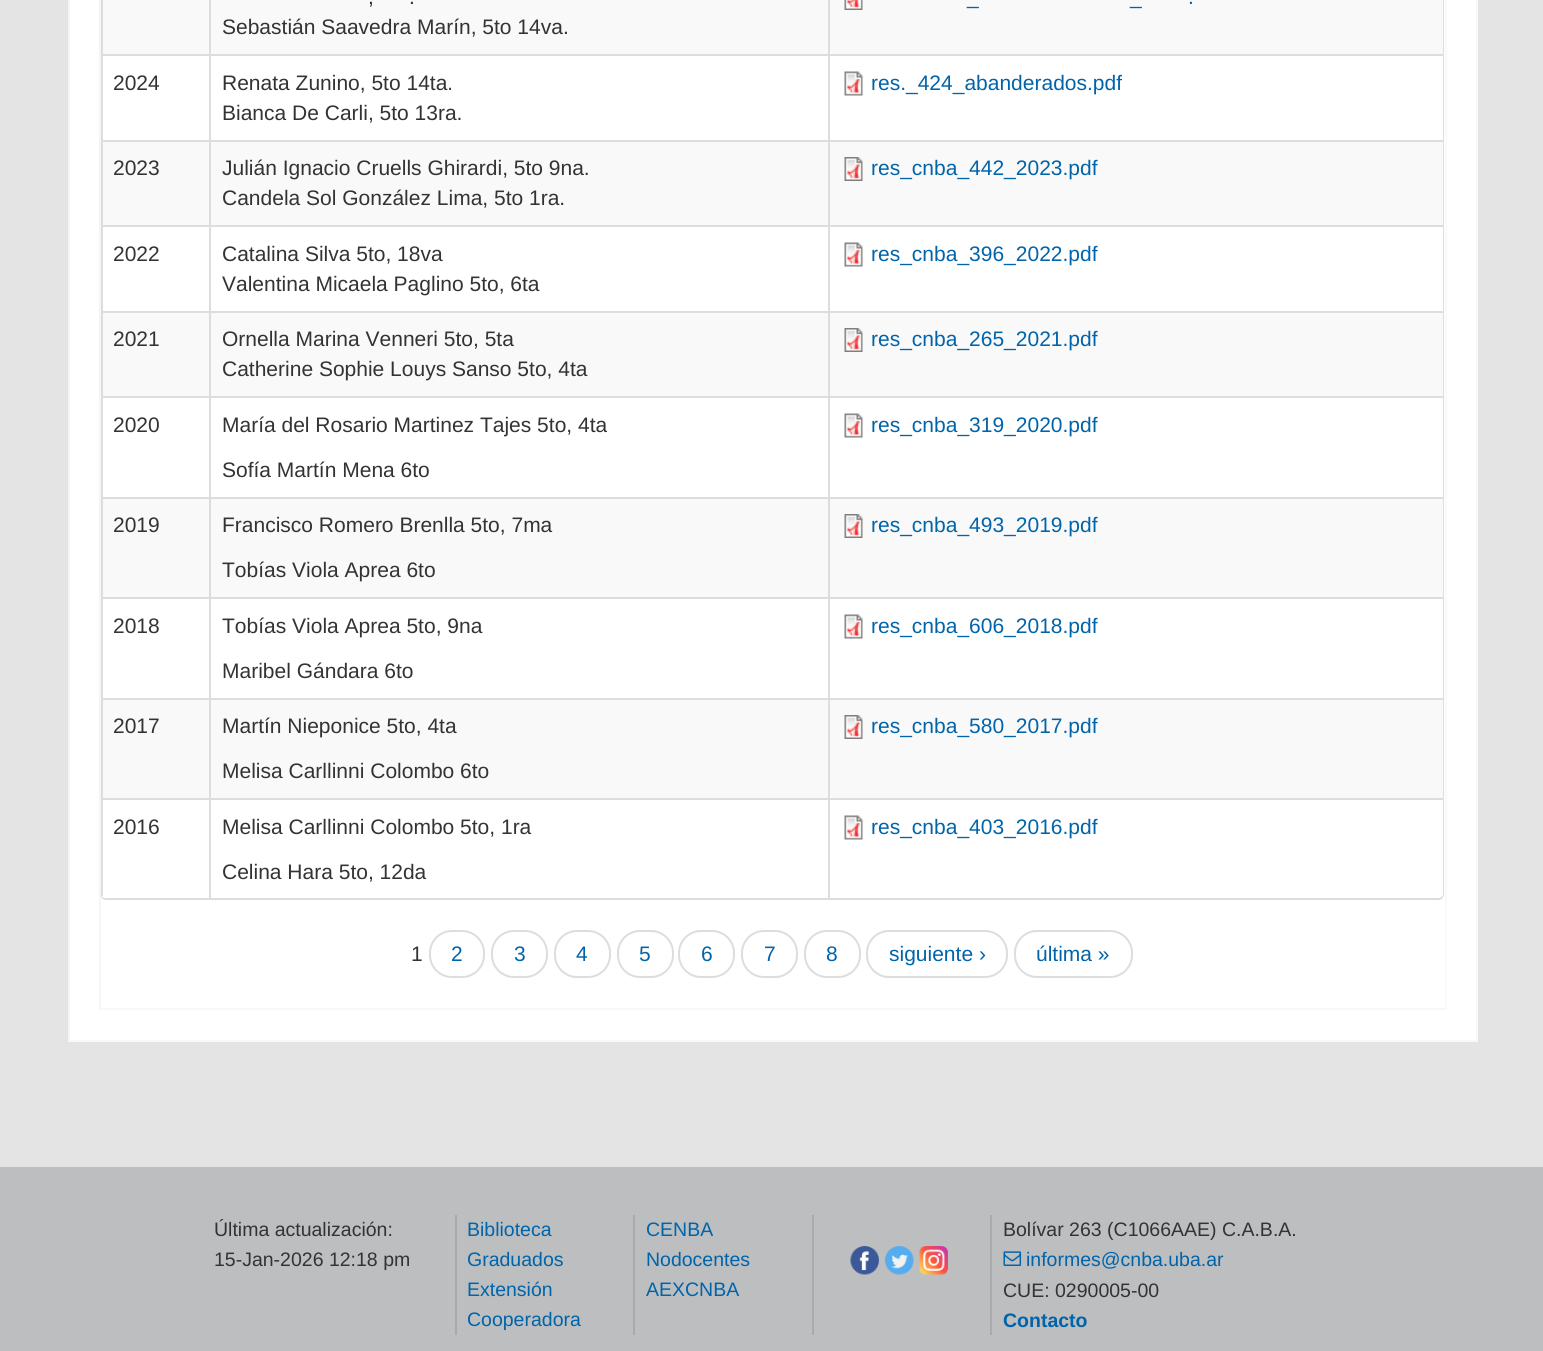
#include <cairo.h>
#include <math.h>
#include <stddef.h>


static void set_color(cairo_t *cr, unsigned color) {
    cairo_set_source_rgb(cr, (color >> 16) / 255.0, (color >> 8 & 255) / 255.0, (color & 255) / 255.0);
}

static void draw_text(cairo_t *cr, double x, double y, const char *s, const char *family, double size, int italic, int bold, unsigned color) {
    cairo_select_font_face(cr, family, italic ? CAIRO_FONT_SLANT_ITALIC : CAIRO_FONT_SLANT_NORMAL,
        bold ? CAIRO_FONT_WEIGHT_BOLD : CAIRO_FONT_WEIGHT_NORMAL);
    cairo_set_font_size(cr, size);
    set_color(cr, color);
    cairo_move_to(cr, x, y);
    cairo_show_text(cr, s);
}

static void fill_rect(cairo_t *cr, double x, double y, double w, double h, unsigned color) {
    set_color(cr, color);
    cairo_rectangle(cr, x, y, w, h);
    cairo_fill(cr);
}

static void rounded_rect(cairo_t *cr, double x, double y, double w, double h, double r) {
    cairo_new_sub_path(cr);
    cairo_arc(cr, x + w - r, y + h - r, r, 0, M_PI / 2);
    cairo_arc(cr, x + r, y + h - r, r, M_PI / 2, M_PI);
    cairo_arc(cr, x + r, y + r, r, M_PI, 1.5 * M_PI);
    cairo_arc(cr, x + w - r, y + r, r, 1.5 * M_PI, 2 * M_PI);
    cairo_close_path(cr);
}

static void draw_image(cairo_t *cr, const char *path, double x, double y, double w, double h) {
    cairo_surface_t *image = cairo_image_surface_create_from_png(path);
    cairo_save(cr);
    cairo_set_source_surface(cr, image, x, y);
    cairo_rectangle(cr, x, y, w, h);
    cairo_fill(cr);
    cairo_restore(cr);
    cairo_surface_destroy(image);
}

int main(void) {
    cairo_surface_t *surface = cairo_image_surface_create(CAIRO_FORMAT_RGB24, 1543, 1351);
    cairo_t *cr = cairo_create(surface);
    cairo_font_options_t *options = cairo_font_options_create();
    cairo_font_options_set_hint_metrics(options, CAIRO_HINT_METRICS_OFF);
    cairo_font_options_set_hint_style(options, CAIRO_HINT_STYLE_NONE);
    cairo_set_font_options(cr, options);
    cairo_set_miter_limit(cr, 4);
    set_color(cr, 0xE4E4E4);
    cairo_paint(cr);
    fill_rect(cr, 70, 0, 1406, 1040, 0xFFFFFF);
    fill_rect(cr, 1476, 0, 2, 1041, 0xF9F9F9);
    fill_rect(cr, 68, 1040, 1410, 2, 0xF8F8F8);
    fill_rect(cr, 68, 0, 2, 1041, 0xF5F5F5);
    fill_rect(cr, 1445, 0, 2, 1010, 0xF9F9F9);
    fill_rect(cr, 99, 1008, 1347, 2, 0xF8F8F8);
    fill_rect(cr, 99, 0, 2, 1010, 0xF5F5F5);
    set_color(cr, 0xDDDDDD);
    cairo_set_fill_rule(cr, CAIRO_FILL_RULE_EVEN_ODD);
    cairo_new_path(cr);
    cairo_move_to(cr, 106, -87);
    cairo_line_to(cr, 1438, -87);
    cairo_curve_to(cr, 1442, -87, 1444, -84, 1444, -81);
    cairo_line_to(cr, 1444, 894);
    cairo_curve_to(cr, 1444, 897, 1442, 900, 1438, 900);
    cairo_line_to(cr, 106, 900);
    cairo_curve_to(cr, 103, 900, 100, 897, 100, 894);
    cairo_line_to(cr, 100, -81);
    cairo_curve_to(cr, 100, -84, 103, -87, 106, -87);
    cairo_close_path(cr);
    cairo_move_to(cr, 106, -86);
    cairo_line_to(cr, 1438, -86);
    cairo_curve_to(cr, 1441, -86, 1443, -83, 1443, -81);
    cairo_line_to(cr, 1443, 894);
    cairo_curve_to(cr, 1443, 896, 1441, 898, 1438, 898);
    cairo_line_to(cr, 106, 898);
    cairo_curve_to(cr, 103, 898, 100, 896, 100, 894);
    cairo_line_to(cr, 100, -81);
    cairo_curve_to(cr, 100, -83, 103, -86, 106, -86);
    cairo_close_path(cr);
    cairo_fill(cr);
    fill_rect(cr, 103, 0, 106, 54, 0xF9F9F9);
    fill_rect(cr, 101, 0, 2, 54, 0xDDDDDD);
    fill_rect(cr, 211, 0, 617, 54, 0xF9F9F9);
    fill_rect(cr, 209, 0, 2, 54, 0xDDDDDD);
    draw_text(cr, 368, 4, ",", "Liberation Sans", 21, 0, 0, 0x333333);
    draw_text(cr, 409, 4, ".", "Liberation Sans", 21, 0, 0, 0x333333);
    draw_text(cr, 222, 34, "Sebastián Saavedra Marín, 5to 14va.", "Liberation Sans", 21, 0, 0, 0x333333);
    fill_rect(cr, 830, 0, 613, 54, 0xF9F9F9);
    fill_rect(cr, 828, 0, 2, 54, 0xDDDDDD);
    draw_image(cr, "assets/img1.png", 844, 0, 19, 10);
    draw_text(cr, 1188, 4, ".", "Liberation Sans", 21, 0, 0, 0x0064AA);
    draw_text(cr, 967, 4, "_", "Liberation Sans", 21, 0, 0, 0x0064AA);
    draw_text(cr, 1130, 4, "_", "Liberation Sans", 21, 0, 0, 0x0064AA);
    fill_rect(cr, 101, 54, 1342, 2, 0xDDDDDD);
    fill_rect(cr, 101, 54, 2, 86, 0xDDDDDD);
    draw_text(cr, 113, 90, "2024", "Liberation Sans", 21, 0, 0, 0x333333);
    fill_rect(cr, 209, 54, 2, 86, 0xDDDDDD);
    draw_text(cr, 222, 90, "Renata Zunino, 5to 14ta.", "Liberation Sans", 21, 0, 0, 0x333333);
    draw_text(cr, 222, 120, "Bianca De Carli, 5to 13ra.", "Liberation Sans", 21, 0, 0, 0x333333);
    fill_rect(cr, 828, 54, 2, 86, 0xDDDDDD);
    draw_image(cr, "assets/img2.png", 844, 71, 19, 25);
    draw_text(cr, 871, 90, "res._424_abanderados.pdf", "Liberation Sans", 21, 0, 0, 0x0064AA);
    fill_rect(cr, 103, 142, 106, 83, 0xF9F9F9);
    fill_rect(cr, 101, 140, 1342, 2, 0xDDDDDD);
    fill_rect(cr, 101, 140, 2, 85, 0xDDDDDD);
    draw_text(cr, 113, 175, "2023", "Liberation Sans", 21, 0, 0, 0x333333);
    fill_rect(cr, 211, 142, 617, 83, 0xF9F9F9);
    fill_rect(cr, 209, 140, 2, 85, 0xDDDDDD);
    draw_text(cr, 222, 175, "Julián Ignacio Cruells Ghirardi, 5to 9na.", "Liberation Sans", 21, 0, 0, 0x333333);
    draw_text(cr, 222, 205, "Candela Sol González Lima, 5to 1ra.", "Liberation Sans", 21, 0, 0, 0x333333);
    fill_rect(cr, 830, 142, 613, 83, 0xF9F9F9);
    fill_rect(cr, 828, 140, 2, 85, 0xDDDDDD);
    draw_image(cr, "assets/img3.png", 844, 157, 19, 24);
    draw_text(cr, 871, 175, "res_cnba_442_2023.pdf", "Liberation Sans", 21, 0, 0, 0x0064AA);
    fill_rect(cr, 101, 225, 1342, 2, 0xDDDDDD);
    fill_rect(cr, 101, 225, 2, 86, 0xDDDDDD);
    draw_text(cr, 113, 261, "2022", "Liberation Sans", 21, 0, 0, 0x333333);
    fill_rect(cr, 209, 225, 2, 86, 0xDDDDDD);
    draw_text(cr, 222, 261, "Catalina Silva 5to, 18va", "Liberation Sans", 21, 0, 0, 0x333333);
    draw_text(cr, 222, 291, "Valentina Micaela Paglino 5to, 6ta", "Liberation Sans", 21, 0, 0, 0x333333);
    fill_rect(cr, 828, 225, 2, 86, 0xDDDDDD);
    draw_image(cr, "assets/img2.png", 844, 242, 19, 25);
    draw_text(cr, 871, 261, "res_cnba_396_2022.pdf", "Liberation Sans", 21, 0, 0, 0x0064AA);
    fill_rect(cr, 103, 313, 106, 83, 0xF9F9F9);
    fill_rect(cr, 101, 311, 1342, 2, 0xDDDDDD);
    fill_rect(cr, 101, 311, 2, 85, 0xDDDDDD);
    draw_text(cr, 113, 346, "2021", "Liberation Sans", 21, 0, 0, 0x333333);
    fill_rect(cr, 211, 313, 617, 83, 0xF9F9F9);
    fill_rect(cr, 209, 311, 2, 85, 0xDDDDDD);
    draw_text(cr, 222, 346, "Ornella Marina Venneri 5to, 5ta", "Liberation Sans", 21, 0, 0, 0x333333);
    draw_text(cr, 222, 376, "Catherine Sophie Louys Sanso 5to, 4ta", "Liberation Sans", 21, 0, 0, 0x333333);
    fill_rect(cr, 830, 313, 613, 83, 0xF9F9F9);
    fill_rect(cr, 828, 311, 2, 85, 0xDDDDDD);
    draw_image(cr, "assets/img3.png", 844, 328, 19, 24);
    draw_text(cr, 871, 346, "res_cnba_265_2021.pdf", "Liberation Sans", 21, 0, 0, 0x0064AA);
    fill_rect(cr, 101, 396, 1342, 2, 0xDDDDDD);
    fill_rect(cr, 101, 396, 2, 101, 0xDDDDDD);
    draw_text(cr, 113, 432, "2020", "Liberation Sans", 21, 0, 0, 0x333333);
    fill_rect(cr, 209, 396, 2, 101, 0xDDDDDD);
    draw_text(cr, 222, 432, "María del Rosario Martinez Tajes 5to, 4ta", "Liberation Sans", 21, 0, 0, 0x333333);
    draw_text(cr, 222, 477, "Sofía Martín Mena 6to", "Liberation Sans", 21, 0, 0, 0x333333);
    fill_rect(cr, 828, 396, 2, 101, 0xDDDDDD);
    draw_image(cr, "assets/img2.png", 844, 413, 19, 25);
    draw_text(cr, 871, 432, "res_cnba_319_2020.pdf", "Liberation Sans", 21, 0, 0, 0x0064AA);
    fill_rect(cr, 103, 499, 106, 98, 0xF9F9F9);
    fill_rect(cr, 101, 497, 1342, 2, 0xDDDDDD);
    fill_rect(cr, 101, 497, 2, 100, 0xDDDDDD);
    draw_text(cr, 113, 532, "2019", "Liberation Sans", 21, 0, 0, 0x333333);
    fill_rect(cr, 211, 499, 617, 98, 0xF9F9F9);
    fill_rect(cr, 209, 497, 2, 100, 0xDDDDDD);
    draw_text(cr, 222, 532, "Francisco Romero Brenlla 5to, 7ma", "Liberation Sans", 21, 0, 0, 0x333333);
    draw_text(cr, 222, 577, "Tobías Viola Aprea 6to", "Liberation Sans", 21, 0, 0, 0x333333);
    fill_rect(cr, 830, 499, 613, 98, 0xF9F9F9);
    fill_rect(cr, 828, 497, 2, 100, 0xDDDDDD);
    draw_image(cr, "assets/img3.png", 844, 514, 19, 24);
    draw_text(cr, 871, 532, "res_cnba_493_2019.pdf", "Liberation Sans", 21, 0, 0, 0x0064AA);
    fill_rect(cr, 101, 597, 1342, 2, 0xDDDDDD);
    fill_rect(cr, 101, 597, 2, 101, 0xDDDDDD);
    draw_text(cr, 113, 633, "2018", "Liberation Sans", 21, 0, 0, 0x333333);
    fill_rect(cr, 209, 597, 2, 101, 0xDDDDDD);
    draw_text(cr, 222, 633, "Tobías Viola Aprea 5to, 9na", "Liberation Sans", 21, 0, 0, 0x333333);
    draw_text(cr, 222, 678, "Maribel Gándara 6to", "Liberation Sans", 21, 0, 0, 0x333333);
    fill_rect(cr, 828, 597, 2, 101, 0xDDDDDD);
    draw_image(cr, "assets/img2.png", 844, 614, 19, 25);
    draw_text(cr, 871, 633, "res_cnba_606_2018.pdf", "Liberation Sans", 21, 0, 0, 0x0064AA);
    fill_rect(cr, 103, 700, 106, 98, 0xF9F9F9);
    fill_rect(cr, 101, 698, 1342, 2, 0xDDDDDD);
    fill_rect(cr, 101, 698, 2, 100, 0xDDDDDD);
    draw_text(cr, 113, 733, "2017", "Liberation Sans", 21, 0, 0, 0x333333);
    fill_rect(cr, 211, 700, 617, 98, 0xF9F9F9);
    fill_rect(cr, 209, 698, 2, 100, 0xDDDDDD);
    draw_text(cr, 222, 733, "Martín Nieponice 5to, 4ta", "Liberation Sans", 21, 0, 0, 0x333333);
    draw_text(cr, 222, 778, "Melisa Carllinni Colombo 6to", "Liberation Sans", 21, 0, 0, 0x333333);
    fill_rect(cr, 830, 700, 613, 98, 0xF9F9F9);
    fill_rect(cr, 828, 698, 2, 100, 0xDDDDDD);
    draw_image(cr, "assets/img3.png", 844, 715, 19, 24);
    draw_text(cr, 871, 733, "res_cnba_580_2017.pdf", "Liberation Sans", 21, 0, 0, 0x0064AA);
    fill_rect(cr, 101, 798, 1342, 2, 0xDDDDDD);
    fill_rect(cr, 101, 798, 2, 98, 0xDDDDDD);
    draw_text(cr, 113, 834, "2016", "Liberation Sans", 21, 0, 0, 0x333333);
    fill_rect(cr, 209, 798, 2, 101, 0xDDDDDD);
    draw_text(cr, 222, 834, "Melisa Carllinni Colombo 5to, 1ra", "Liberation Sans", 21, 0, 0, 0x333333);
    draw_text(cr, 222, 879, "Celina Hara 5to, 12da", "Liberation Sans", 21, 0, 0, 0x333333);
    fill_rect(cr, 828, 798, 2, 101, 0xDDDDDD);
    draw_image(cr, "assets/img2.png", 844, 815, 19, 25);
    draw_text(cr, 871, 834, "res_cnba_403_2016.pdf", "Liberation Sans", 21, 0, 0, 0x0064AA);
    draw_text(cr, 411, 961, "1", "Liberation Sans", 21, 0, 0, 0x333333);
    rounded_rect(cr, 430, 931, 54, 46, 22);
    set_color(cr, 0xDDDDDD);
    cairo_stroke(cr);
    draw_text(cr, 451, 961, "2", "Liberation Sans", 21, 0, 0, 0x0064AA);
    rounded_rect(cr, 492, 931, 55, 46, 22);
    set_color(cr, 0xDDDDDD);
    cairo_stroke(cr);
    draw_text(cr, 514, 961, "3", "Liberation Sans", 21, 0, 0, 0x0064AA);
    rounded_rect(cr, 555, 931, 55, 46, 22);
    set_color(cr, 0xDDDDDD);
    cairo_stroke(cr);
    draw_text(cr, 576, 961, "4", "Liberation Sans", 21, 0, 0, 0x0064AA);
    rounded_rect(cr, 618, 931, 55, 46, 22);
    set_color(cr, 0xDDDDDD);
    cairo_stroke(cr);
    draw_text(cr, 639, 961, "5", "Liberation Sans", 21, 0, 0, 0x0064AA);
    rounded_rect(cr, 679, 931, 55, 46, 22);
    set_color(cr, 0xDDDDDD);
    cairo_stroke(cr);
    draw_text(cr, 701, 961, "6", "Liberation Sans", 21, 0, 0, 0x0064AA);
    rounded_rect(cr, 742, 931, 55, 46, 22);
    set_color(cr, 0xDDDDDD);
    cairo_stroke(cr);
    draw_text(cr, 764, 961, "7", "Liberation Sans", 21, 0, 0, 0x0064AA);
    rounded_rect(cr, 805, 931, 55, 46, 22);
    set_color(cr, 0xDDDDDD);
    cairo_stroke(cr);
    draw_text(cr, 826, 961, "8", "Liberation Sans", 21, 0, 0, 0x0064AA);
    rounded_rect(cr, 867, 931, 140, 46, 22);
    set_color(cr, 0xDDDDDD);
    cairo_stroke(cr);
    draw_text(cr, 889, 961, "siguiente ›", "Liberation Sans", 21, 0, 0, 0x0064AA);
    rounded_rect(cr, 1015, 931, 117, 46, 22);
    set_color(cr, 0xDDDDDD);
    cairo_stroke(cr);
    draw_text(cr, 1036, 961, "última »", "Liberation Sans", 21, 0, 0, 0x0064AA);
    fill_rect(cr, 0, 1167, 1543, 184, 0xBCBEC0);
    draw_text(cr, 214, 1236, "Última actualización:", "Liberation Sans", 19.5, 0, 0, 0x333333);
    draw_text(cr, 214, 1266, "15-Jan-2026 12:18 pm", "Liberation Sans", 19.5, 0, 0, 0x333333);
    fill_rect(cr, 455, 1215, 2, 120, 0xAAAAAA);
    draw_text(cr, 467, 1236, "Biblioteca", "Liberation Sans", 19.5, 0, 0, 0x0064AA);
    draw_text(cr, 467, 1266, "Graduados", "Liberation Sans", 19.5, 0, 0, 0x0064AA);
    draw_text(cr, 467, 1296, "Extensión", "Liberation Sans", 19.5, 0, 0, 0x0064AA);
    draw_text(cr, 467, 1326, "Cooperadora", "Liberation Sans", 19.5, 0, 0, 0x0064AA);
    fill_rect(cr, 633, 1215, 2, 120, 0xAAAAAA);
    draw_text(cr, 646, 1236, "CENBA", "Liberation Sans", 19.5, 0, 0, 0x0064AA);
    draw_text(cr, 646, 1266, "Nodocentes", "Liberation Sans", 19.5, 0, 0, 0x0064AA);
    draw_text(cr, 646, 1296, "AEXCNBA", "Liberation Sans", 19.5, 0, 0, 0x0064AA);
    fill_rect(cr, 812, 1215, 2, 120, 0xAAAAAA);
    draw_image(cr, "assets/img4.png", 850, 1246, 29, 29);
    draw_image(cr, "assets/img5.png", 885, 1246, 29, 29);
    draw_image(cr, "assets/img6.png", 919, 1246, 29, 29);
    fill_rect(cr, 990, 1215, 2, 120, 0xAAAAAA);
    draw_text(cr, 1003, 1236, "Bolívar 263 (C1066AAE) C.A.B.A.", "Liberation Sans", 19.5, 0, 0, 0x333333);
    draw_image(cr, "assets/img7.png", 1003, 1251, 19, 15);
    draw_text(cr, 1026, 1266, "informes@cnba.uba.ar", "Liberation Sans", 19.5, 0, 0, 0x0064AA);
    draw_text(cr, 1003, 1297, "CUE: 0290005-00", "Liberation Sans", 19.5, 0, 0, 0x333333);
    draw_text(cr, 1003, 1327, "Contacto", "Liberation Sans", 19.5, 0, 1, 0x0064AA);
    cairo_surface_write_to_png(surface, "output.png");
    cairo_font_options_destroy(options);
    cairo_destroy(cr);
    cairo_surface_destroy(surface);
    return 0;
}
